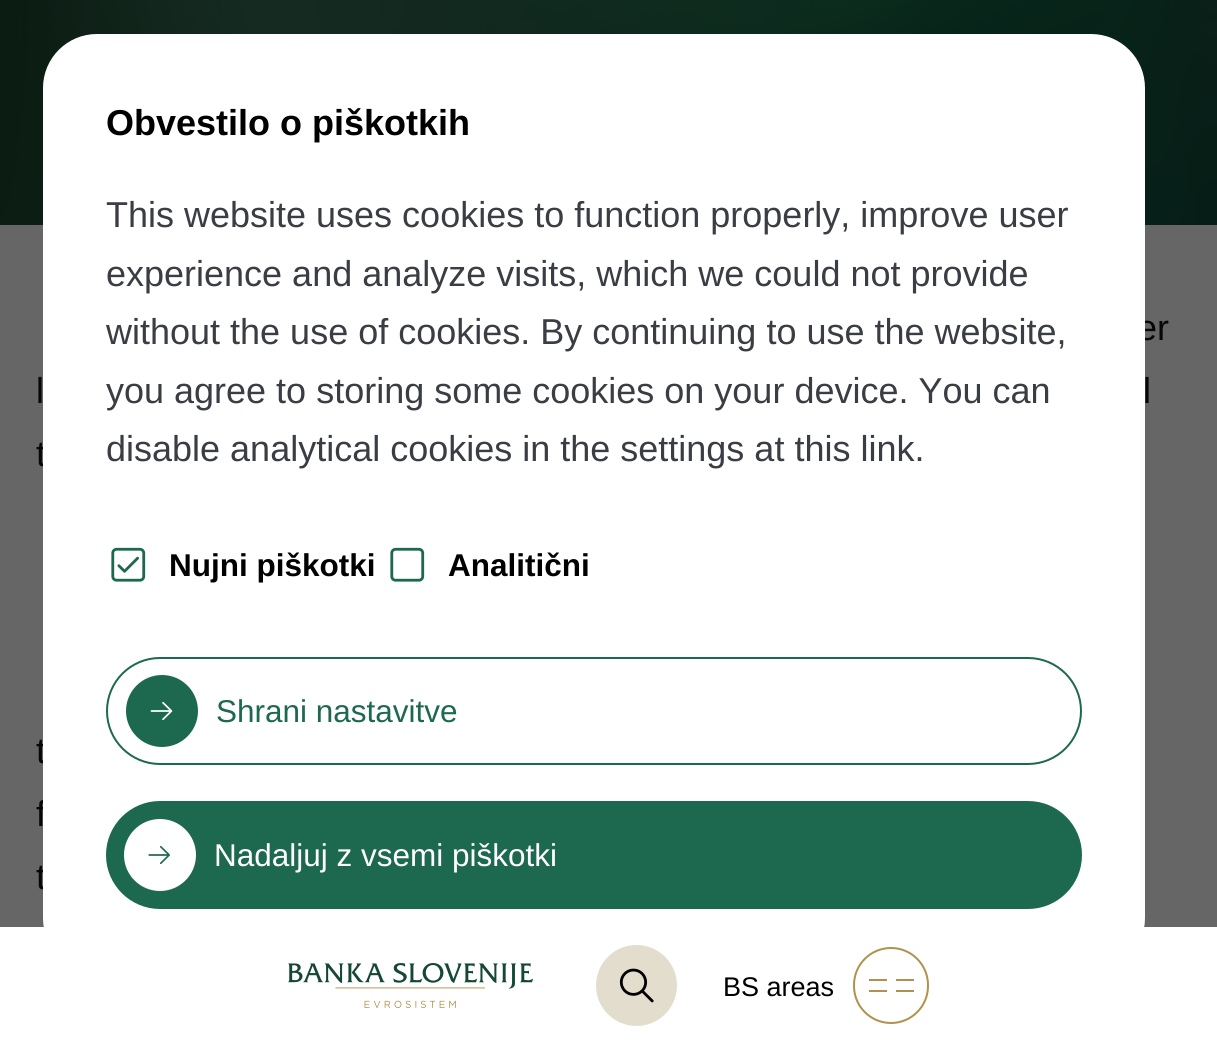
#include <cairo.h>
#include <math.h>
#include <stddef.h>


static void set_color(cairo_t *cr, unsigned color) {
    cairo_set_source_rgb(cr, (color >> 16) / 255.0, (color >> 8 & 255) / 255.0, (color & 255) / 255.0);
}

static void draw_text(cairo_t *cr, double x, double y, const char *s, const char *family, double size, int italic, int bold, unsigned color) {
    cairo_select_font_face(cr, family, italic ? CAIRO_FONT_SLANT_ITALIC : CAIRO_FONT_SLANT_NORMAL,
        bold ? CAIRO_FONT_WEIGHT_BOLD : CAIRO_FONT_WEIGHT_NORMAL);
    cairo_set_font_size(cr, size);
    set_color(cr, color);
    cairo_move_to(cr, x, y);
    cairo_show_text(cr, s);
}

static void fill_rect(cairo_t *cr, double x, double y, double w, double h, unsigned color) {
    set_color(cr, color);
    cairo_rectangle(cr, x, y, w, h);
    cairo_fill(cr);
}

static void rounded_rect(cairo_t *cr, double x, double y, double w, double h, double r) {
    cairo_new_sub_path(cr);
    cairo_arc(cr, x + w - r, y + h - r, r, 0, M_PI / 2);
    cairo_arc(cr, x + r, y + h - r, r, M_PI / 2, M_PI);
    cairo_arc(cr, x + r, y + r, r, M_PI, 1.5 * M_PI);
    cairo_arc(cr, x + w - r, y + r, r, 1.5 * M_PI, 2 * M_PI);
    cairo_close_path(cr);
}

static void draw_image(cairo_t *cr, const char *path, double x, double y, double w, double h) {
    cairo_surface_t *image = cairo_image_surface_create_from_png(path);
    cairo_save(cr);
    cairo_set_source_surface(cr, image, x, y);
    cairo_rectangle(cr, x, y, w, h);
    cairo_fill(cr);
    cairo_restore(cr);
    cairo_surface_destroy(image);
}

int main(void) {
    cairo_surface_t *surface = cairo_image_surface_create(CAIRO_FORMAT_RGB24, 1217, 1042);
    cairo_t *cr = cairo_create(surface);
    cairo_font_options_t *options = cairo_font_options_create();
    cairo_font_options_set_hint_metrics(options, CAIRO_HINT_METRICS_OFF);
    cairo_font_options_set_hint_style(options, CAIRO_HINT_STYLE_NONE);
    cairo_set_font_options(cr, options);
    cairo_set_miter_limit(cr, 4);
    set_color(cr, 0x666666);
    cairo_paint(cr);
    draw_image(cr, "assets/img5.png", 0, 0, 1217, 225);
    draw_text(cr, 1137, 340, "er", "Liberation Sans", 36, 0, 0, 0x070707);
    draw_text(cr, 36, 466, "t", "Liberation Sans", 36, 0, 0, 0x070707);
    draw_text(cr, 36, 763, "t", "Liberation Sans", 36, 0, 0, 0x070707);
    draw_text(cr, 36, 826, "f", "Liberation Sans", 36, 0, 0, 0x070707);
    draw_text(cr, 36, 889, "t", "Liberation Sans", 36, 0, 0, 0x070707);
    set_color(cr, 0xFFFFFF);
    rounded_rect(cr, 43, 34, 1102, 938, 54);
    cairo_fill(cr);
    draw_text(cr, 106, 135, "Obvestilo o piškotkih", "Liberation Sans", 36, 0, 1, 0x000000);
    draw_text(cr, 106, 227, "This website uses cookies to function properly, improve user", "Liberation Sans", 36, 0, 0, 0x3A3D43);
    draw_text(cr, 106, 286, "experience and analyze visits, which we could not provide", "Liberation Sans", 36, 0, 0, 0x3A3D43);
    draw_text(cr, 106, 344, "without the use of cookies. By continuing to use the website,", "Liberation Sans", 36, 0, 0, 0x3A3D43);
    draw_text(cr, 106, 403, "you agree to storing some cookies on your device. You can", "Liberation Sans", 36, 0, 0, 0x3A3D43);
    draw_text(cr, 106, 461, "disable analytical cookies in the settings at this link.", "Liberation Sans", 36, 0, 0, 0x3A3D43);
    draw_image(cr, "assets/img1.png", 111, 547, 35, 35);
    draw_text(cr, 169, 576, "Nujni piškotki", "Liberation Sans", 31.5, 0, 1, 0x000000);
    draw_image(cr, "assets/img2.png", 390, 547, 35, 35);
    draw_text(cr, 448, 576, "Analitični", "Liberation Sans", 31.5, 0, 1, 0x000000);
    rounded_rect(cr, 107, 658, 974, 106, 53);
    set_color(cr, 0x1D694F);
    cairo_stroke(cr);
    cairo_arc(cr, 162, 711, 36, 0, 2 * M_PI);
    cairo_fill(cr);
    draw_image(cr, "assets/img3.png", 150, 701, 23, 20);
    draw_text(cr, 216, 722, "Shrani nastavitve", "Liberation Sans", 31.5, 0, 0, 0x1D694F);
    rounded_rect(cr, 106, 801, 976, 108, 54);
    cairo_fill(cr);
    set_color(cr, 0xFFFFFF);
    cairo_arc(cr, 160, 855, 36, 0, 2 * M_PI);
    cairo_fill(cr);
    draw_image(cr, "assets/img4.png", 148, 845, 22, 20);
    draw_text(cr, 214, 866, "Nadaljuj z vsemi piškotki", "Liberation Sans", 31.5, 0, 0, 0xFFFFFF);
    draw_text(cr, 36, 403, "l", "Liberation Sans", 36, 0, 0, 0x070707);
    draw_text(cr, 1143, 403, "l", "Liberation Sans", 36, 0, 0, 0x070707);
    fill_rect(cr, 0, 927, 1217, 115, 0xFFFFFF);
    draw_image(cr, "assets/img6.png", 288, 963, 245, 45);
    set_color(cr, 0xE3DDCE);
    cairo_arc(cr, 636.5, 985.5, 40.5, 0, 2 * M_PI);
    cairo_fill(cr);
    draw_image(cr, "assets/img7.png", 619, 968, 35, 35);
    draw_text(cr, 723, 996, "BS areas", "Liberation Sans", 27, 0, 0, 0x000000);
    rounded_rect(cr, 854, 948, 74, 75, 37);
    set_color(cr, 0xAE924D);
    cairo_stroke(cr);
    fill_rect(cr, 869, 979, 45, 2, 0xAE924D);
    fill_rect(cr, 887, 979, 9, 2, 0xFFFFFF);
    fill_rect(cr, 869, 990, 45, 2, 0xAE924D);
    fill_rect(cr, 887, 990, 9, 2, 0xFFFFFF);
    cairo_surface_write_to_png(surface, "output.png");
    cairo_font_options_destroy(options);
    cairo_destroy(cr);
    cairo_surface_destroy(surface);
    return 0;
}
